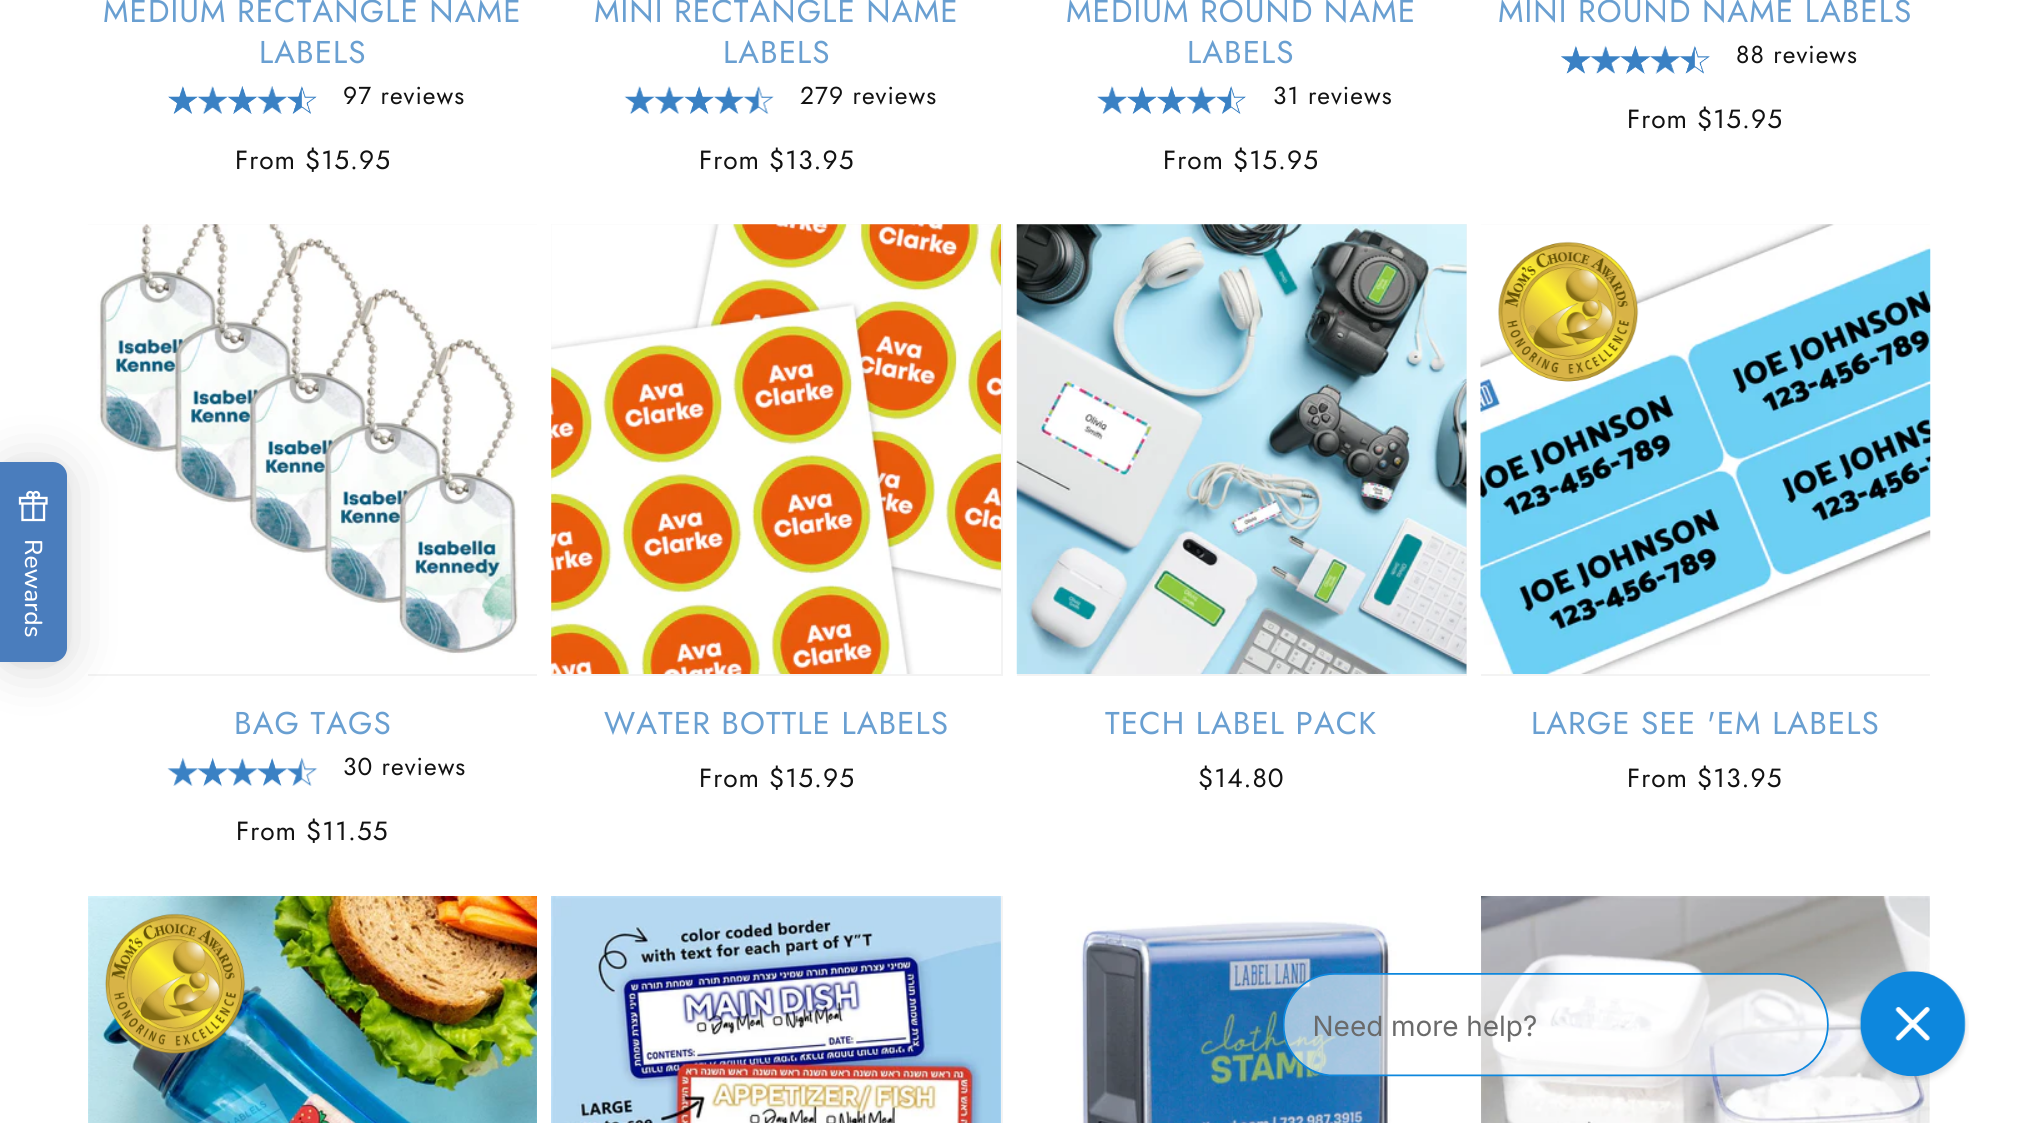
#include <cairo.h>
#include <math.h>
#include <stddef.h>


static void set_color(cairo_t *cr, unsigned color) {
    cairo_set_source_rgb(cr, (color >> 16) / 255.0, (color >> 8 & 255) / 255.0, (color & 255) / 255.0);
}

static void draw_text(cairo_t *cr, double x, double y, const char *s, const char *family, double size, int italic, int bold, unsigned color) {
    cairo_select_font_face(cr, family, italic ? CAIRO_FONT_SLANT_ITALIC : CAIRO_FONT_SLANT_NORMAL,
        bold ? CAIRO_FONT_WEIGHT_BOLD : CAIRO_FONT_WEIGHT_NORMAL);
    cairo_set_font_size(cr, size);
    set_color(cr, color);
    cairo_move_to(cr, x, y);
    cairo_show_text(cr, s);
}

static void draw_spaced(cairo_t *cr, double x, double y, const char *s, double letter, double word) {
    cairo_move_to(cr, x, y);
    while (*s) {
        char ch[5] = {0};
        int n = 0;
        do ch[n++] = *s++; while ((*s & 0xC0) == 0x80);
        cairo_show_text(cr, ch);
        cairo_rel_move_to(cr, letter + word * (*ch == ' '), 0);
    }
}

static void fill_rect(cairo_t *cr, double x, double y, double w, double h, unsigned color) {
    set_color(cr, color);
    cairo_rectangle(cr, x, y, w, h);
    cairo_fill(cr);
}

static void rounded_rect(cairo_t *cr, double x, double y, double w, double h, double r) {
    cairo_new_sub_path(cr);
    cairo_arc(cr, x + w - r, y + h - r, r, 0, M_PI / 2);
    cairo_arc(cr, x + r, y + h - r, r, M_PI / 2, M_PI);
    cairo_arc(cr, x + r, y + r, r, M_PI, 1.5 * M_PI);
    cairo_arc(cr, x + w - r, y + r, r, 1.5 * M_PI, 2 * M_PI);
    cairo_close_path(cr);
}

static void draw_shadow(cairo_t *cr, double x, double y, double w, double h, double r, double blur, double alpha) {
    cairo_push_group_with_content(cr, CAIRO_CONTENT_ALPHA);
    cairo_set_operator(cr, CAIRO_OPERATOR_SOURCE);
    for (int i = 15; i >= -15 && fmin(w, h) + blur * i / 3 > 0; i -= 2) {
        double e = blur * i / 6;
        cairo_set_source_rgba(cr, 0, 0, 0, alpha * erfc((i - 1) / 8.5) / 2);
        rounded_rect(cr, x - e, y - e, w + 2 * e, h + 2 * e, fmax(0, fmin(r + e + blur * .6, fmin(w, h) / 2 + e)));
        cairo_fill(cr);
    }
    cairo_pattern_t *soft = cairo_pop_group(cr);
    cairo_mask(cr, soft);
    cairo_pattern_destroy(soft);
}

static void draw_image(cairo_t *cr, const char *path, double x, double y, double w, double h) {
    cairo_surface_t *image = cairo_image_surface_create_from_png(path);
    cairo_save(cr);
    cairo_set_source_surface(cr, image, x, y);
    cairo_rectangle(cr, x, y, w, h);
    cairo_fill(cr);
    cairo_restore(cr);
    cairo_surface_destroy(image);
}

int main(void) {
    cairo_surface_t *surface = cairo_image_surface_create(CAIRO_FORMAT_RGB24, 2017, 1123);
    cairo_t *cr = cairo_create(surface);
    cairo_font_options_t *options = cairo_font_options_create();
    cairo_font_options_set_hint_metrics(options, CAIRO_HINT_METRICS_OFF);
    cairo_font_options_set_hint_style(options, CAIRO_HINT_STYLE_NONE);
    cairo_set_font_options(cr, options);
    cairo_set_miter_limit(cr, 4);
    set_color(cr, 0xFFFFFF);
    cairo_paint(cr);
    fill_rect(cr, 88, 224, 449, 452, 0xF3F3F3);
    draw_image(cr, "assets/img22.png", 88, 224, 449, 450);
    set_color(cr, 0x000000);
    draw_shadow(cr, 0, 466, 67, 199, 14, 28, 0.16);
    draw_shadow(cr, 0, 464, 67, 199, 14, 5, 0.06);
    set_color(cr, 0x4A7DBD);
    cairo_new_path(cr);
    cairo_move_to(cr, 0, 462);
    cairo_line_to(cr, 53, 462);
    cairo_curve_to(cr, 60.5, 462, 67, 468.5, 67, 476);
    cairo_line_to(cr, 67, 648);
    cairo_curve_to(cr, 67, 655.5, 60.5, 662, 53, 662);
    cairo_line_to(cr, 0, 662);
    cairo_close_path(cr);
    cairo_fill(cr);
    draw_image(cr, "assets/img1.png", 18, 490, 30, 32);
    cairo_save(cr);
    cairo_translate(cr, 25, 539);
    cairo_rotate(cr, 90 * M_PI / 180);
    draw_text(cr, 0, 0, "Rewards", "Nunito Medium", 24.5, 0, 0, 0xFFFFFF);
    cairo_restore(cr);
    cairo_select_font_face(cr, "Jost", CAIRO_FONT_SLANT_NORMAL, CAIRO_FONT_WEIGHT_NORMAL);
    cairo_set_font_size(cr, 31.5);
    set_color(cr, 0x699FD1);
    draw_spaced(cr, 103, 22, "MEDIUM RECTANGLE NAME", 1.05, 0);
    draw_spaced(cr, 259, 63, "LABELS", 1.05, 0);
    draw_image(cr, "assets/img2.png", 168, 86, 30, 28);
    draw_image(cr, "assets/img3.png", 197, 86, 31, 28);
    draw_image(cr, "assets/img4.png", 227, 86, 31, 28);
    draw_image(cr, "assets/img5.png", 257, 86, 31, 28);
    draw_image(cr, "assets/img6.png", 287, 86, 30, 28);
    cairo_set_font_size(cr, 24.5);
    set_color(cr, 0x121212);
    draw_spaced(cr, 343, 104, "97 reviews", 1.05, 0);
    cairo_set_font_size(cr, 26.25);
    draw_spaced(cr, 235, 169, "From $15.95", 1.05, 0);
    cairo_set_font_size(cr, 31.5);
    set_color(cr, 0x699FD1);
    draw_spaced(cr, 594, 22, "MINI RECTANGLE NAME", 1.05, 0);
    draw_spaced(cr, 723, 63, "LABELS", 1.05, 0);
    draw_image(cr, "assets/img7.png", 624, 86, 31, 28);
    draw_image(cr, "assets/img8.png", 654, 86, 31, 28);
    draw_image(cr, "assets/img9.png", 684, 86, 30, 28);
    draw_image(cr, "assets/img10.png", 713, 86, 31, 28);
    draw_image(cr, "assets/img11.png", 743, 86, 31, 28);
    cairo_set_font_size(cr, 24.5);
    set_color(cr, 0x121212);
    draw_spaced(cr, 800, 104, "279 reviews", 1.05, 0);
    cairo_set_font_size(cr, 26.25);
    draw_spaced(cr, 699, 169, "From $13.95", 1.05, 0);
    cairo_set_font_size(cr, 31.5);
    set_color(cr, 0x699FD1);
    draw_spaced(cr, 1066, 22, "MEDIUM ROUND NAME", 1.05, 0);
    draw_spaced(cr, 1187, 63, "LABELS", 1.05, 0);
    draw_image(cr, "assets/img12.png", 1097, 86, 31, 28);
    draw_image(cr, "assets/img13.png", 1127, 86, 30, 28);
    draw_image(cr, "assets/img14.png", 1156, 86, 31, 28);
    draw_image(cr, "assets/img15.png", 1186, 86, 31, 28);
    draw_image(cr, "assets/img16.png", 1216, 86, 30, 28);
    cairo_set_font_size(cr, 24.5);
    set_color(cr, 0x121212);
    draw_spaced(cr, 1273, 104, "31 reviews", 1.05, 0);
    cairo_set_font_size(cr, 26.25);
    draw_spaced(cr, 1163, 169, "From $15.95", 1.05, 0);
    cairo_set_font_size(cr, 31.5);
    set_color(cr, 0x699FD1);
    draw_spaced(cr, 1498, 22, "MINI ROUND NAME LABELS", 1.05, 0);
    draw_image(cr, "assets/img17.png", 1561, 45, 30, 29);
    draw_image(cr, "assets/img18.png", 1590, 45, 31, 29);
    draw_image(cr, "assets/img19.png", 1620, 45, 31, 29);
    draw_image(cr, "assets/img20.png", 1650, 45, 31, 29);
    draw_image(cr, "assets/img21.png", 1680, 45, 30, 29);
    cairo_set_font_size(cr, 24.5);
    set_color(cr, 0x121212);
    draw_spaced(cr, 1736, 63, "88 reviews", 1.05, 0);
    cairo_set_font_size(cr, 26.25);
    draw_spaced(cr, 1627, 128, "From $15.95", 1.05, 0);
    cairo_set_font_size(cr, 31.5);
    set_color(cr, 0x699FD1);
    draw_spaced(cr, 234, 734, "BAG TAGS", 1.05, 0);
    draw_image(cr, "assets/img23.png", 167, 757, 32, 29);
    draw_image(cr, "assets/img24.png", 197, 757, 31, 30);
    draw_image(cr, "assets/img25.png", 227, 758, 31, 28);
    draw_image(cr, "assets/img26.png", 257, 757, 30, 30);
    draw_image(cr, "assets/img27.png", 286, 757, 32, 29);
    cairo_set_font_size(cr, 24.5);
    set_color(cr, 0x121212);
    draw_spaced(cr, 343, 775, "30 reviews", 1.05, 0);
    cairo_set_font_size(cr, 26.25);
    draw_spaced(cr, 236, 840, "From $11.55", 1.05, 0);
    fill_rect(cr, 551, 224, 452, 452, 0xF3F3F3);
    draw_image(cr, "assets/img28.png", 551, 224, 450, 450);
    cairo_set_font_size(cr, 31.5);
    set_color(cr, 0x699FD1);
    draw_spaced(cr, 604, 734, "WATER BOTTLE LABELS", 1.05, 0);
    cairo_set_font_size(cr, 26.25);
    set_color(cr, 0x121212);
    draw_spaced(cr, 699, 787, "From $15.95", 1.05, 0);
    fill_rect(cr, 1017, 224, 450, 452, 0xF3F3F3);
    draw_image(cr, "assets/img29.png", 1016, 224, 451, 450);
    cairo_set_font_size(cr, 31.5);
    set_color(cr, 0x699FD1);
    draw_spaced(cr, 1105, 734, "TECH LABEL PACK", 1.05, 0);
    cairo_set_font_size(cr, 26.25);
    set_color(cr, 0x121212);
    draw_spaced(cr, 1198, 787, "$14.80", 1.05, 0);
    fill_rect(cr, 1481, 224, 449, 452, 0xF3F3F3);
    draw_image(cr, "assets/img30.png", 1480, 224, 451, 450);
    draw_image(cr, "assets/img31.png", 1498, 241, 141, 141);
    cairo_set_font_size(cr, 31.5);
    set_color(cr, 0x699FD1);
    draw_spaced(cr, 1531, 734, "LARGE SEE 'EM LABELS", 1.05, 0);
    cairo_set_font_size(cr, 26.25);
    set_color(cr, 0x121212);
    draw_spaced(cr, 1627, 787, "From $13.95", 1.05, 0);
    draw_image(cr, "assets/img32.png", 88, 896, 449, 227);
    draw_image(cr, "assets/img33.png", 105, 913, 140, 141);
    fill_rect(cr, 1001, 896, 2, 227, 0xF3F3F3);
    draw_image(cr, "assets/img34.png", 551, 896, 450, 227);
    draw_image(cr, "assets/img35.png", 1017, 896, 450, 227);
    draw_image(cr, "assets/img36.png", 1481, 896, 449, 227);
    draw_image(cr, "assets/img37.png", 1283, 971, 686, 112);
    cairo_surface_write_to_png(surface, "output.png");
    cairo_font_options_destroy(options);
    cairo_destroy(cr);
    cairo_surface_destroy(surface);
    return 0;
}
